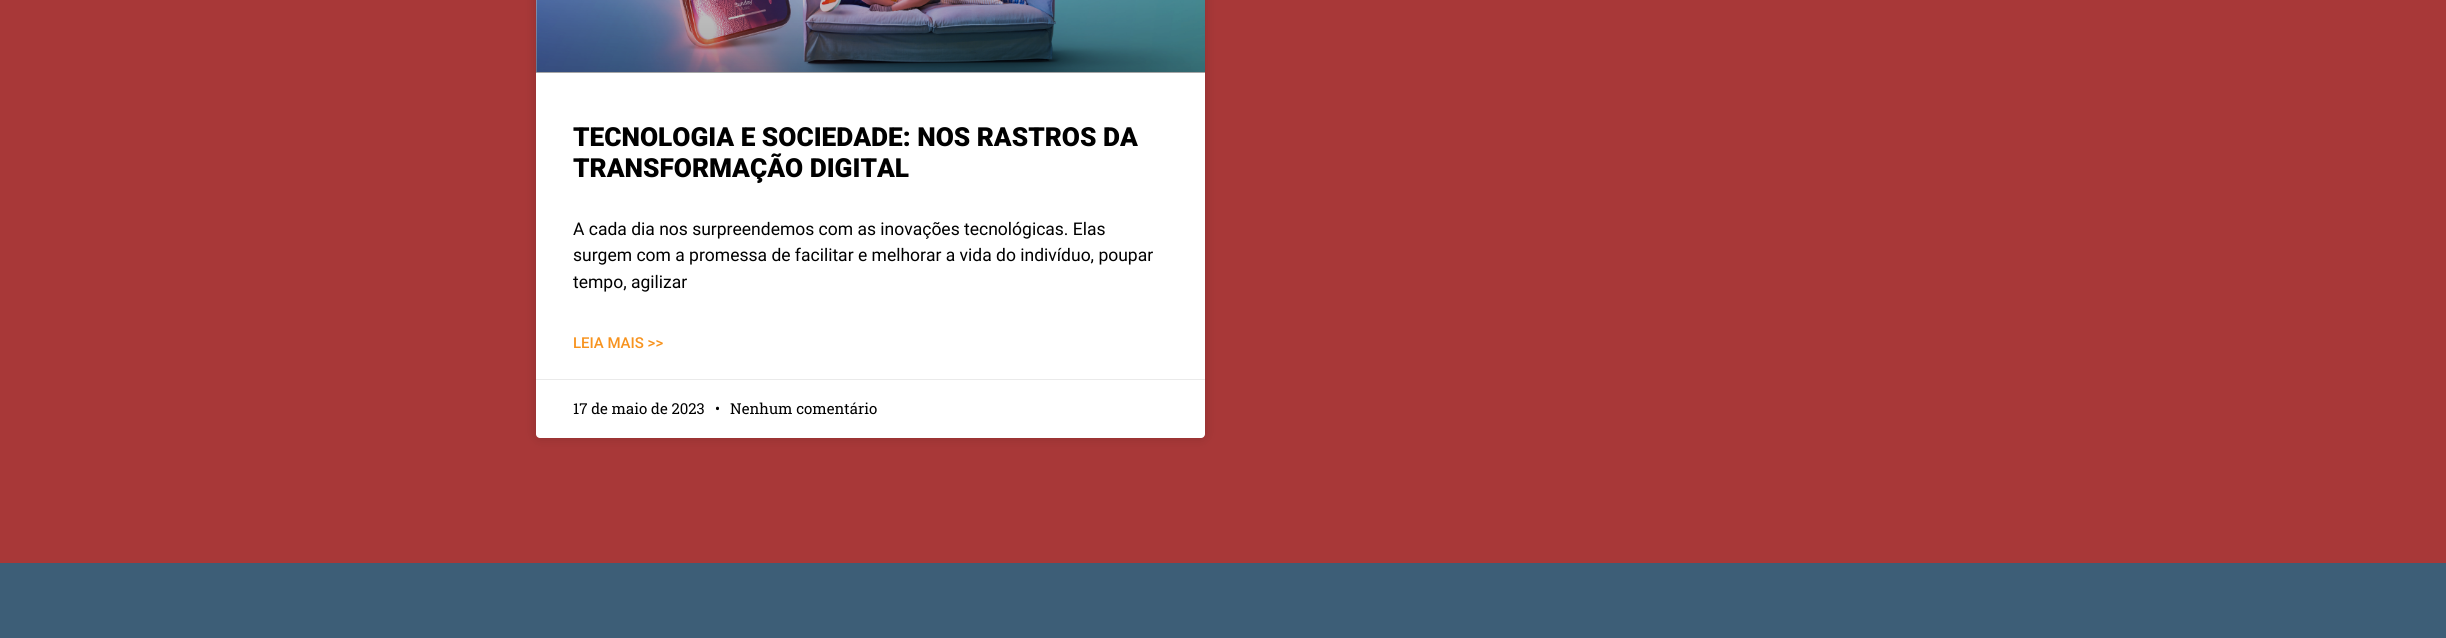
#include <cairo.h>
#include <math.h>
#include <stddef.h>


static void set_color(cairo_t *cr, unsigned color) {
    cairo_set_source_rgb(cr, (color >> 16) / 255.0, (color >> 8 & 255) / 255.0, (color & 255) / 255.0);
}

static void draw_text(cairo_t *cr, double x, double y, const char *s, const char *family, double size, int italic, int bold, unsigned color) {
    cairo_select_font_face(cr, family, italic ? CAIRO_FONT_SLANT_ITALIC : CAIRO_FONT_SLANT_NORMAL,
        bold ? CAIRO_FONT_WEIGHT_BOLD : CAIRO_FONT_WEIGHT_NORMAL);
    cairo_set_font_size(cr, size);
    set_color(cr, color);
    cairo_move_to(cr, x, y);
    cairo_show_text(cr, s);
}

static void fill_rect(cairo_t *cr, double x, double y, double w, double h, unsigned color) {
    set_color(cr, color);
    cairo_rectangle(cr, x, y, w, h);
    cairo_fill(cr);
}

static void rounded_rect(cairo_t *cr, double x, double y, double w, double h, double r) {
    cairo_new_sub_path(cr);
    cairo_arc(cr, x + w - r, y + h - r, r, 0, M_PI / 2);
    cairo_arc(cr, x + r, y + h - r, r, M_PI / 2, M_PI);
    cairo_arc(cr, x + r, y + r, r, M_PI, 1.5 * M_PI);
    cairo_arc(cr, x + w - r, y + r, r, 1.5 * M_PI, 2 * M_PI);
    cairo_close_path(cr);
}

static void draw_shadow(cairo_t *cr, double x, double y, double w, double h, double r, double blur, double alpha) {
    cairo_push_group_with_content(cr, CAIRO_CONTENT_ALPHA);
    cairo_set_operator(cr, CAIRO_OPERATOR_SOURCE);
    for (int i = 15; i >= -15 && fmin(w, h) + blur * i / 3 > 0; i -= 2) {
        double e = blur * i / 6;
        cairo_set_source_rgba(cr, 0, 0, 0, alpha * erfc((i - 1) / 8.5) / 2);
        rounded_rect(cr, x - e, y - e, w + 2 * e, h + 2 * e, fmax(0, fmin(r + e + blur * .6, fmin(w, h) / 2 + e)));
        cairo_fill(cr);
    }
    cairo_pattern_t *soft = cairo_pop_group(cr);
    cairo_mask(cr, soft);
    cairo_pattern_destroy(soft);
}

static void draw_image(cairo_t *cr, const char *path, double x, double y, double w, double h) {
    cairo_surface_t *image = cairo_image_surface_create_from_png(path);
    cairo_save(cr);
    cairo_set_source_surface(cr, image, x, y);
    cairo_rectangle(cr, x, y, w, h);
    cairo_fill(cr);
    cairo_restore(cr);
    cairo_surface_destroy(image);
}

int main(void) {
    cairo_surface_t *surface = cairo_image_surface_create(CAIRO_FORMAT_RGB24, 2446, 638);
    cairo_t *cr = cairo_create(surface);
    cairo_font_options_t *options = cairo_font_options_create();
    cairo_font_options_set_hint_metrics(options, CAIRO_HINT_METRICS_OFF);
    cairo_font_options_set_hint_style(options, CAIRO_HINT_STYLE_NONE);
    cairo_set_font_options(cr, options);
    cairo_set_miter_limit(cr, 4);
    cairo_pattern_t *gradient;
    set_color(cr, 0xA83838);
    cairo_paint(cr);
    set_color(cr, 0x000000);
    draw_shadow(cr, 536, -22, 669, 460, 4, 6, 0.15);
    set_color(cr, 0xFFFFFF);
    rounded_rect(cr, 536, -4, 669, 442, 4);
    cairo_fill(cr);
    draw_image(cr, "assets/img1.png", 536, 0, 669, 72);
    gradient = cairo_pattern_create_linear(871, 73, 871, -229);
    cairo_pattern_add_color_stop_rgba(gradient, 0, 0, 0, 0, 0.35);
    cairo_pattern_add_color_stop_rgba(gradient, 0.75, 0, 0, 0, 0);
    cairo_set_source(cr, gradient);
    cairo_pattern_destroy(gradient);
    cairo_rectangle(cr, 536, 0, 669, 73);
    cairo_fill(cr);
    draw_text(cr, 573, 146, "TECNOLOGIA E SOCIEDADE: NOS RASTROS DA", "Roboto Black", 26.25, 0, 0, 0x000000);
    draw_text(cr, 573, 177, "TRANSFORMAÇÃO DIGITAL", "Roboto Black", 26.25, 0, 0, 0x000000);
    draw_text(cr, 573, 235, "A cada dia nos surpreendemos com as inovações tecnológicas. Elas", "Roboto", 17.5, 0, 0, 0x000000);
    draw_text(cr, 573, 261, "surgem com a promessa de facilitar e melhorar a vida do indivíduo, poupar", "Roboto", 17.5, 0, 0, 0x000000);
    draw_text(cr, 573, 288, "tempo, agilizar", "Roboto", 17.5, 0, 0, 0x000000);
    draw_text(cr, 573, 348, "LEIA MAIS >>", "Roboto Medium", 15, 0, 0, 0xF7931E);
    fill_rect(cr, 536, 379, 669, 1, 0xEAEAEA);
    draw_text(cr, 573, 414, "17 de maio de 2023", "Roboto Slab", 15, 0, 0, 0x000000);
    draw_text(cr, 715, 414, "•", "Roboto Slab", 15, 0, 0, 0x000000);
    draw_text(cr, 730, 414, "Nenhum comentário", "Roboto Slab", 15, 0, 0, 0x000000);
    fill_rect(cr, 0, 563, 2446, 75, 0x3D5E77);
    cairo_surface_write_to_png(surface, "output.png");
    cairo_font_options_destroy(options);
    cairo_destroy(cr);
    cairo_surface_destroy(surface);
    return 0;
}
